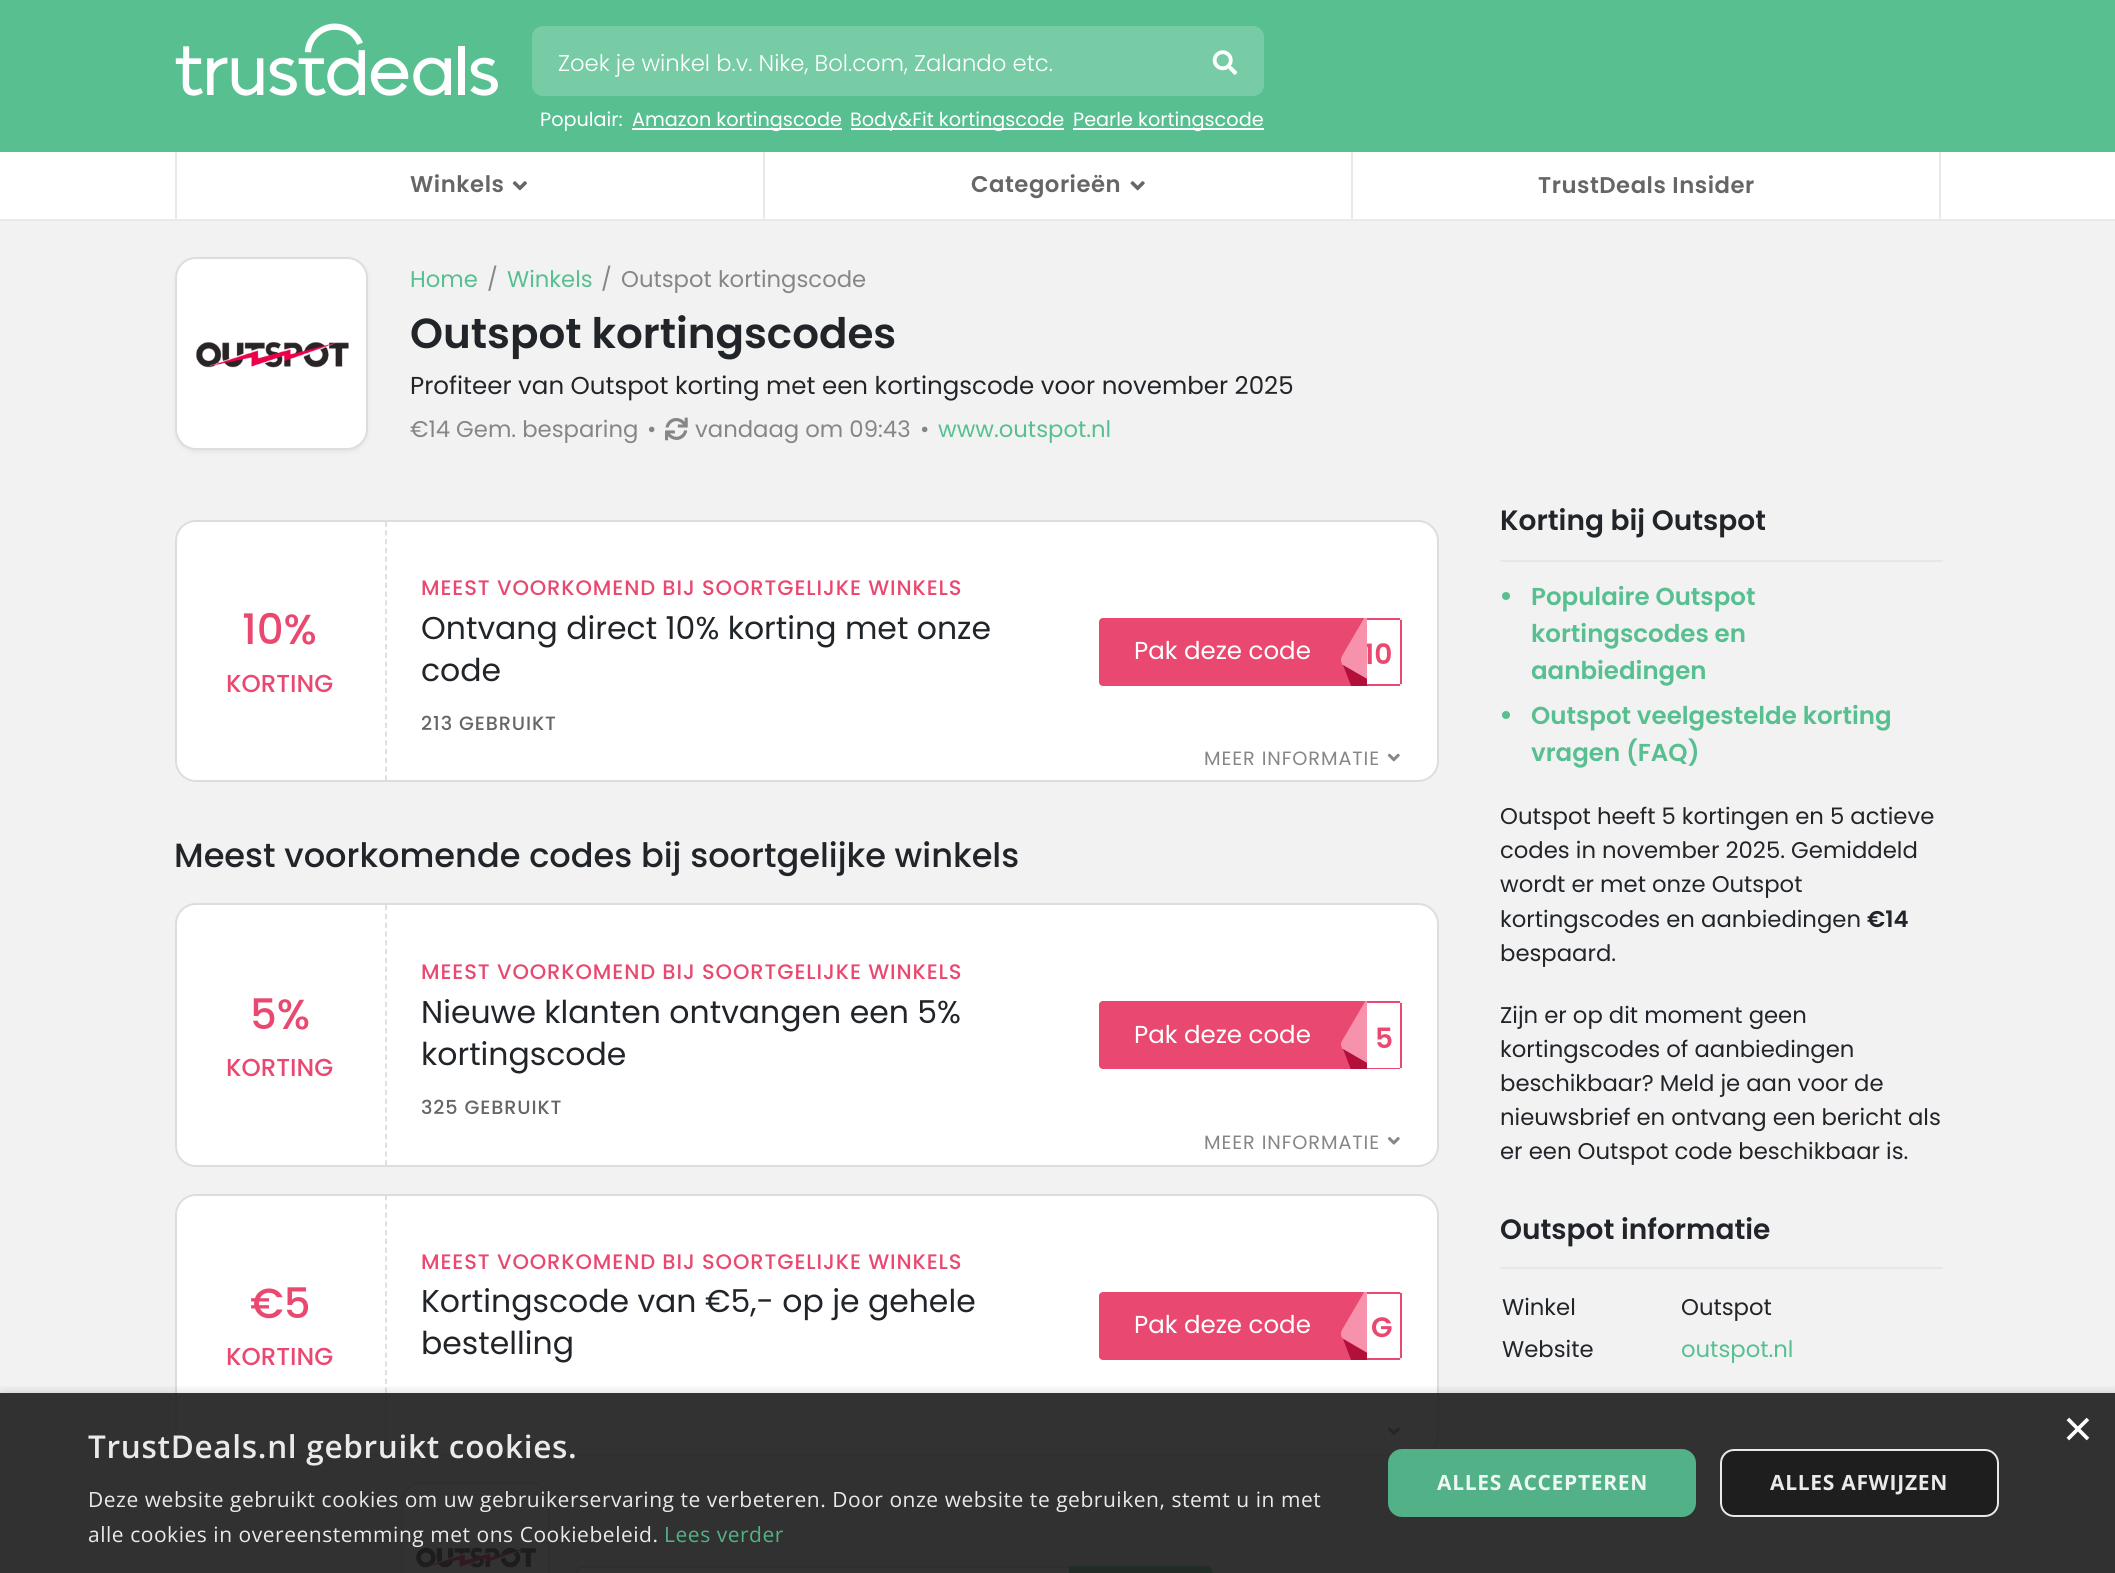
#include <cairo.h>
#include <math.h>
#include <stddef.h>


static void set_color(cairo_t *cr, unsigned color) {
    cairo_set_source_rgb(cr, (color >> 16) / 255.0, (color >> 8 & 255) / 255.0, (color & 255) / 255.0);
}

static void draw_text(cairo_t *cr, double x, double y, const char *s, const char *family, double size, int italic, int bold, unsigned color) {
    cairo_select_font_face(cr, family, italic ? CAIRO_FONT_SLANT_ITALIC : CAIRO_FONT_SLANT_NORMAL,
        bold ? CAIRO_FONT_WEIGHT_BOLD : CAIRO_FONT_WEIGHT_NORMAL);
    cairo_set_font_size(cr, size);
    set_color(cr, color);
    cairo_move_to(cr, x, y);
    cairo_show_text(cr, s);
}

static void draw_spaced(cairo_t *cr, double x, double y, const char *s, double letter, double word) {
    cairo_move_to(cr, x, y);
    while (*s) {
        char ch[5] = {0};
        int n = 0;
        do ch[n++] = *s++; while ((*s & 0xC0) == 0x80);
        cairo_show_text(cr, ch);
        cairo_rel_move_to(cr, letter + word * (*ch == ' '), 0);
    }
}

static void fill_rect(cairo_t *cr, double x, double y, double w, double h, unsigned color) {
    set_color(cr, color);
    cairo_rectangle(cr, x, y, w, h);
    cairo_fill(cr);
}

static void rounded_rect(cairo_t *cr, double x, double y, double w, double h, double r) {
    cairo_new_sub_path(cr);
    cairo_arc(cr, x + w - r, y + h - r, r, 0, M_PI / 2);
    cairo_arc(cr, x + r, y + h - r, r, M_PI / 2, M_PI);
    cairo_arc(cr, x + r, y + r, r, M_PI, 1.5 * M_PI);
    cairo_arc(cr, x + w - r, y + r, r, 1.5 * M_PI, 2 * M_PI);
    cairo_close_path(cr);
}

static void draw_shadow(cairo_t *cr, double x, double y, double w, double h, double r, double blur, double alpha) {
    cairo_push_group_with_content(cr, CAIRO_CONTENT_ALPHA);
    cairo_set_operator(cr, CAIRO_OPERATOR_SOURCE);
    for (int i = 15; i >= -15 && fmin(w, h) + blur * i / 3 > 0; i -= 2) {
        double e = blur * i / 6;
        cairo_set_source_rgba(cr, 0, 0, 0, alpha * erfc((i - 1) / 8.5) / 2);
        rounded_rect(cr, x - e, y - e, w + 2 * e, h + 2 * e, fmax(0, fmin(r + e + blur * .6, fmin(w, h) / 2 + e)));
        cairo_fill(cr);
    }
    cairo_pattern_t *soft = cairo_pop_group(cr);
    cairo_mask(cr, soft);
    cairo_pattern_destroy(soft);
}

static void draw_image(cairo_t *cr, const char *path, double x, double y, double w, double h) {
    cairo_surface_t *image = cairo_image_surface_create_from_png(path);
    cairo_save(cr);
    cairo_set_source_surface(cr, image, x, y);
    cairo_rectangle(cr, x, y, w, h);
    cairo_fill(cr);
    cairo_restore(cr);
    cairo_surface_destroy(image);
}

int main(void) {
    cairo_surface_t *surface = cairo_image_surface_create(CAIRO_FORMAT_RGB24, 2115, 1573);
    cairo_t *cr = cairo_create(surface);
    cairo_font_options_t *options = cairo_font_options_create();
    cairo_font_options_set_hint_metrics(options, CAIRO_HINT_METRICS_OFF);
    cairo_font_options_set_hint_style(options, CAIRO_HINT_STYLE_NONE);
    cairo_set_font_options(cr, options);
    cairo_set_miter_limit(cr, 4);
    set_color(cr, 0xF2F2F2);
    cairo_paint(cr);
    fill_rect(cr, 0, 0, 2115, 152, 0x57BF90);
    draw_image(cr, "assets/img1.png", 175, 23, 323, 73);
    set_color(cr, 0x77CCA6);
    rounded_rect(cr, 532, 26, 732, 70, 11);
    cairo_fill(cr);
    draw_text(cr, 558, 71, "Zoek je winkel b.v. Nike, Bol.com, Zalando etc.", "Poppins Light", 22.75, 0, 0, 0xFFFFFF);
    draw_image(cr, "assets/img2.png", 1212, 50, 26, 25);
    draw_text(cr, 540, 126, "Populair:", "Poppins", 19.25, 0, 0, 0xFFFFFF);
    fill_rect(cr, 632, 128, 210, 2, 0xFFFFFF);
    draw_text(cr, 632, 126, "Amazon kortingscode", "Poppins", 19.25, 0, 0, 0xFFFFFF);
    fill_rect(cr, 851, 128, 213, 2, 0xFFFFFF);
    draw_text(cr, 850, 126, "Body&Fit kortingscode", "Poppins", 19.25, 0, 0, 0xFFFFFF);
    fill_rect(cr, 1073, 128, 191, 2, 0xFFFFFF);
    draw_text(cr, 1073, 126, "Pearle kortingscode", "Poppins", 19.25, 0, 0, 0xFFFFFF);
    fill_rect(cr, 0, 152, 2115, 67, 0xFFFFFF);
    fill_rect(cr, 0, 219, 2115, 2, 0xE9E9E9);
    fill_rect(cr, 763, 152, 2, 67, 0xE9E9E9);
    fill_rect(cr, 175, 152, 2, 67, 0xE9E9E9);
    cairo_select_font_face(cr, "Poppins SemiBold", CAIRO_FONT_SLANT_NORMAL, CAIRO_FONT_WEIGHT_NORMAL);
    cairo_set_font_size(cr, 22.75);
    set_color(cr, 0x666666);
    draw_spaced(cr, 410, 192, "Winkels", 0.53, 0);
    draw_image(cr, "assets/img3.png", 512, 181, 15, 10);
    fill_rect(cr, 1351, 152, 2, 67, 0xE9E9E9);
    set_color(cr, 0x666666);
    draw_spaced(cr, 971, 192, "Categorieën", 0.53, 0);
    draw_image(cr, "assets/img4.png", 1130, 181, 15, 10);
    fill_rect(cr, 1939, 152, 2, 67, 0xE9E9E9);
    set_color(cr, 0x666666);
    draw_spaced(cr, 1538, 193, "TrustDeals Insider", 0.53, 0);
    set_color(cr, 0x000000);
    draw_shadow(cr, 175, 259, 193, 193, 21, 2.5, 0.06);
    set_color(cr, 0xFFFFFF);
    rounded_rect(cr, 176, 258, 191, 191, 20);
    cairo_fill_preserve(cr);
    set_color(cr, 0xDDDDDD);
    cairo_stroke(cr);
    draw_image(cr, "assets/img5.png", 196, 342, 153, 26);
    draw_text(cr, 410, 287, "Home", "Poppins", 22.75, 0, 0, 0x57BF90);
    draw_text(cr, 487, 287, "/", "Poppins", 22.75, 0, 0, 0x868686);
    draw_text(cr, 507, 287, "Winkels", "Poppins", 22.75, 0, 0, 0x57BF90);
    draw_text(cr, 601, 287, "/", "Poppins", 22.75, 0, 0, 0x868686);
    draw_text(cr, 621, 287, "Outspot kortingscode", "Poppins", 22.75, 0, 0, 0x868686);
    draw_text(cr, 410, 348, "Outspot kortingscodes", "Poppins SemiBold", 42, 0, 0, 0x212529);
    draw_text(cr, 410, 394, "Profiteer van Outspot korting met een kortingscode voor november 2025", "Poppins", 24.5, 0, 0, 0x212529);
    draw_text(cr, 410, 437, "€14 Gem. besparing", "Poppins", 22.75, 0, 0, 0x868686);
    draw_text(cr, 647, 437, "•", "Poppins", 22.75, 0, 0, 0x868686);
    draw_image(cr, "assets/img6.png", 665, 417, 23, 24);
    draw_text(cr, 695, 437, "vandaag om 09:43", "Poppins", 22.75, 0, 0, 0x868686);
    draw_text(cr, 920, 437, "•", "Poppins", 22.75, 0, 0, 0x868686);
    draw_text(cr, 938, 437, "www.outspot.nl", "Poppins", 22.75, 0, 0, 0x57BF90);
    set_color(cr, 0xFFFFFF);
    rounded_rect(cr, 176, 521, 1262, 260, 20);
    cairo_fill_preserve(cr);
    set_color(cr, 0xDDDDDD);
    cairo_stroke(cr);
    cairo_new_path(cr);
    cairo_move_to(cr, 386, 521.5);
    cairo_line_to(cr, 386, 780.5);
    cairo_set_line_width(cr, 1.8);
    cairo_set_dash(cr, (double[]){5.25, 3.5}, 2, 0);
    cairo_stroke(cr);
    draw_text(cr, 242, 644, "10%", "Poppins Medium", 42, 0, 0, 0xE94970);
    draw_text(cr, 226, 692, "KORTING", "Poppins Medium", 24.5, 0, 0, 0xE94970);
    cairo_set_font_size(cr, 21);
    draw_spaced(cr, 421, 595, "MEEST VOORKOMEND BIJ SOORTGELIJKE WINKELS", 0.9, 0);
    draw_text(cr, 421, 639, "Ontvang direct 10% korting met onze", "Poppins", 31.5, 0, 0, 0x212529);
    draw_text(cr, 421, 681, "code", "Poppins", 31.5, 0, 0, 0x212529);
    cairo_select_font_face(cr, "Poppins Medium", CAIRO_FONT_SLANT_NORMAL, CAIRO_FONT_WEIGHT_NORMAL);
    cairo_set_font_size(cr, 19.25);
    set_color(cr, 0x666666);
    draw_spaced(cr, 421, 730, "213 GEBRUIKT", 0.9, 0);
    cairo_select_font_face(cr, "Poppins", CAIRO_FONT_SLANT_NORMAL, CAIRO_FONT_WEIGHT_NORMAL);
    set_color(cr, 0x868686);
    draw_spaced(cr, 1204, 765, "MEER INFORMATIE", 0.9, 0);
    draw_image(cr, "assets/img7.png", 1387, 753, 13, 9);
    set_color(cr, 0xE94970);
    rounded_rect(cr, 1099, 618, 303, 68, 4);
    cairo_fill(cr);
    draw_text(cr, 1134, 659, "Pak deze code", "Poppins", 24.5, 0, 0, 0xFFFFFF);
    cairo_save(cr);
    cairo_rectangle(cr, 1099, 618, 303, 68);
    cairo_clip(cr);
    set_color(cr, 0xF792AD);
    cairo_new_path(cr);
    cairo_move_to(cr, 1373, 603);
    cairo_line_to(cr, 1421, 631);
    cairo_line_to(cr, 1390, 684);
    cairo_curve_to(cr, 1388, 687, 1384, 689, 1381, 687);
    cairo_line_to(cr, 1344, 666);
    cairo_curve_to(cr, 1341, 664, 1340, 660, 1342, 656);
    cairo_close_path(cr);
    cairo_fill(cr);
    set_color(cr, 0xB30F3B);
    cairo_new_path(cr);
    cairo_move_to(cr, 1343, 665);
    cairo_line_to(cr, 1393, 694);
    cairo_line_to(cr, 1403, 720);
    cairo_line_to(cr, 1353, 691);
    cairo_close_path(cr);
    cairo_fill(cr);
    cairo_restore(cr);
    cairo_new_path(cr);
    cairo_move_to(cr, 1367, 618);
    cairo_line_to(cr, 1398, 618);
    cairo_curve_to(cr, 1400, 618, 1402, 620, 1402, 622);
    cairo_line_to(cr, 1402, 682);
    cairo_curve_to(cr, 1402, 684, 1400, 686, 1398, 686);
    cairo_line_to(cr, 1367, 686);
    cairo_close_path(cr);
    cairo_fill(cr);
    fill_rect(cr, 1367, 618, 33, 2, 0xE94970);
    fill_rect(cr, 1400, 620, 2, 64, 0xE94970);
    fill_rect(cr, 1367, 684, 33, 2, 0xE94970);
    cairo_save(cr);
    cairo_new_path(cr);
    cairo_move_to(cr, 1367, 620);
    cairo_line_to(cr, 1398, 620);
    cairo_curve_to(cr, 1399, 620, 1400, 621, 1400, 622);
    cairo_line_to(cr, 1400, 682);
    cairo_curve_to(cr, 1400, 683, 1399, 684, 1398, 684);
    cairo_line_to(cr, 1367, 684);
    cairo_close_path(cr);
    cairo_clip(cr);
    draw_text(cr, 1364, 664, "10", "Poppins SemiBold", 28, 0, 0, 0xE94970);
    cairo_restore(cr);
    draw_text(cr, 174, 867, "Meest voorkomende codes bij soortgelijke winkels", "Poppins Medium", 33.6, 0, 0, 0x212529);
    set_color(cr, 0xFFFFFF);
    rounded_rect(cr, 176, 904, 1262, 262, 20);
    cairo_fill_preserve(cr);
    set_color(cr, 0xDDDDDD);
    cairo_set_line_width(cr, 2);
    cairo_set_dash(cr, NULL, 0, 0);
    cairo_stroke(cr);
    cairo_new_path(cr);
    cairo_move_to(cr, 386, 905);
    cairo_line_to(cr, 386, 1165.5);
    cairo_set_line_width(cr, 1.8);
    cairo_set_dash(cr, (double[]){5.25, 3.55}, 2, 0);
    cairo_stroke(cr);
    draw_text(cr, 250, 1029, "5%", "Poppins Medium", 42, 0, 0, 0xE94970);
    draw_text(cr, 226, 1076, "KORTING", "Poppins Medium", 24.5, 0, 0, 0xE94970);
    cairo_set_font_size(cr, 21);
    draw_spaced(cr, 421, 979, "MEEST VOORKOMEND BIJ SOORTGELIJKE WINKELS", 0.9, 0);
    draw_text(cr, 421, 1023, "Nieuwe klanten ontvangen een 5%", "Poppins", 31.5, 0, 0, 0x212529);
    draw_text(cr, 421, 1065, "kortingscode", "Poppins", 31.5, 0, 0, 0x212529);
    cairo_select_font_face(cr, "Poppins Medium", CAIRO_FONT_SLANT_NORMAL, CAIRO_FONT_WEIGHT_NORMAL);
    cairo_set_font_size(cr, 19.25);
    set_color(cr, 0x666666);
    draw_spaced(cr, 421, 1114, "325 GEBRUIKT", 0.9, 0);
    cairo_select_font_face(cr, "Poppins", CAIRO_FONT_SLANT_NORMAL, CAIRO_FONT_WEIGHT_NORMAL);
    set_color(cr, 0x868686);
    draw_spaced(cr, 1204, 1149, "MEER INFORMATIE", 0.9, 0);
    draw_image(cr, "assets/img8.png", 1387, 1137, 13, 8);
    set_color(cr, 0xE94970);
    rounded_rect(cr, 1099, 1001, 303, 68, 4);
    cairo_fill(cr);
    draw_text(cr, 1134, 1043, "Pak deze code", "Poppins", 24.5, 0, 0, 0xFFFFFF);
    cairo_save(cr);
    cairo_rectangle(cr, 1099, 1001, 303, 68);
    cairo_clip(cr);
    set_color(cr, 0xF792AD);
    cairo_new_path(cr);
    cairo_move_to(cr, 1373, 988);
    cairo_line_to(cr, 1421, 1015);
    cairo_line_to(cr, 1390, 1068);
    cairo_curve_to(cr, 1388, 1071, 1384, 1073, 1381, 1071);
    cairo_line_to(cr, 1344, 1050);
    cairo_curve_to(cr, 1341, 1048, 1340, 1044, 1342, 1041);
    cairo_close_path(cr);
    cairo_fill(cr);
    set_color(cr, 0xB30F3B);
    cairo_new_path(cr);
    cairo_move_to(cr, 1343, 1049);
    cairo_line_to(cr, 1393, 1078);
    cairo_line_to(cr, 1403, 1104);
    cairo_line_to(cr, 1353, 1075);
    cairo_close_path(cr);
    cairo_fill(cr);
    cairo_restore(cr);
    cairo_new_path(cr);
    cairo_move_to(cr, 1367, 1001);
    cairo_line_to(cr, 1398, 1001);
    cairo_curve_to(cr, 1400, 1001, 1402, 1003, 1402, 1005);
    cairo_line_to(cr, 1402, 1065);
    cairo_curve_to(cr, 1402, 1067, 1400, 1069, 1398, 1069);
    cairo_line_to(cr, 1367, 1069);
    cairo_close_path(cr);
    cairo_fill(cr);
    fill_rect(cr, 1367, 1001, 33, 2, 0xE94970);
    fill_rect(cr, 1400, 1003, 2, 65, 0xE94970);
    fill_rect(cr, 1367, 1068, 33, 1, 0xE94970);
    draw_text(cr, 1375, 1048, "5", "Poppins SemiBold", 28, 0, 0, 0xE94970);
    set_color(cr, 0xFFFFFF);
    rounded_rect(cr, 176, 1195, 1262, 260, 20);
    cairo_fill_preserve(cr);
    set_color(cr, 0xDDDDDD);
    cairo_set_line_width(cr, 2);
    cairo_set_dash(cr, NULL, 0, 0);
    cairo_stroke(cr);
    cairo_new_path(cr);
    cairo_move_to(cr, 386, 1195);
    cairo_line_to(cr, 386, 1454);
    cairo_set_line_width(cr, 1.8);
    cairo_set_dash(cr, (double[]){5.25, 3.5}, 2, 0);
    cairo_stroke(cr);
    draw_text(cr, 250, 1318, "€5", "Poppins Medium", 42, 0, 0, 0xE94970);
    draw_text(cr, 226, 1365, "KORTING", "Poppins Medium", 24.5, 0, 0, 0xE94970);
    cairo_set_font_size(cr, 21);
    draw_spaced(cr, 421, 1269, "MEEST VOORKOMEND BIJ SOORTGELIJKE WINKELS", 0.9, 0);
    draw_text(cr, 421, 1312, "Kortingscode van €5,- op je gehele", "Poppins", 31.5, 0, 0, 0x212529);
    draw_text(cr, 421, 1354, "bestelling", "Poppins", 31.5, 0, 0, 0x212529);
    draw_image(cr, "assets/img9.png", 1387, 1427, 13, 9);
    set_color(cr, 0xE94970);
    rounded_rect(cr, 1099, 1292, 303, 68, 4);
    cairo_fill(cr);
    draw_text(cr, 1134, 1333, "Pak deze code", "Poppins", 24.5, 0, 0, 0xFFFFFF);
    cairo_save(cr);
    cairo_rectangle(cr, 1099, 1292, 303, 68);
    cairo_clip(cr);
    set_color(cr, 0xF792AD);
    cairo_new_path(cr);
    cairo_move_to(cr, 1373, 1277);
    cairo_line_to(cr, 1421, 1305);
    cairo_line_to(cr, 1390, 1358);
    cairo_curve_to(cr, 1388, 1361, 1384, 1362, 1381, 1361);
    cairo_line_to(cr, 1344, 1339);
    cairo_curve_to(cr, 1341, 1338, 1340, 1334, 1342, 1330);
    cairo_close_path(cr);
    cairo_fill(cr);
    set_color(cr, 0xB30F3B);
    cairo_new_path(cr);
    cairo_move_to(cr, 1343, 1339);
    cairo_line_to(cr, 1393, 1368);
    cairo_line_to(cr, 1403, 1394);
    cairo_line_to(cr, 1353, 1365);
    cairo_close_path(cr);
    cairo_fill(cr);
    cairo_restore(cr);
    cairo_new_path(cr);
    cairo_move_to(cr, 1367, 1292);
    cairo_line_to(cr, 1398, 1292);
    cairo_curve_to(cr, 1400, 1292, 1402, 1294, 1402, 1296);
    cairo_line_to(cr, 1402, 1356);
    cairo_curve_to(cr, 1402, 1358, 1400, 1360, 1398, 1360);
    cairo_line_to(cr, 1367, 1360);
    cairo_close_path(cr);
    cairo_fill(cr);
    fill_rect(cr, 1367, 1292, 33, 2, 0xE94970);
    fill_rect(cr, 1400, 1293, 2, 65, 0xE94970);
    fill_rect(cr, 1367, 1358, 33, 2, 0xE94970);
    draw_text(cr, 1371, 1337, "G", "Poppins SemiBold", 28, 0, 0, 0xE94970);
    set_color(cr, 0xFFFFFF);
    rounded_rect(cr, 402, 1483, 147, 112, 20);
    cairo_fill_preserve(cr);
    set_color(cr, 0xDDDDDD);
    cairo_set_line_width(cr, 2);
    cairo_set_dash(cr, NULL, 0, 0);
    cairo_stroke(cr);
    draw_image(cr, "assets/img10.png", 416, 1547, 120, 21);
    set_color(cr, 0xFFFFFF);
    cairo_new_path(cr);
    cairo_move_to(cr, 583, 1568);
    cairo_line_to(cr, 1069, 1568);
    cairo_line_to(cr, 1069, 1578);
    cairo_line_to(cr, 583, 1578);
    cairo_curve_to(cr, 580, 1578, 578, 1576, 578, 1573);
    cairo_curve_to(cr, 578, 1570, 580, 1568, 583, 1568);
    cairo_close_path(cr);
    cairo_fill(cr);
    set_color(cr, 0xCED4DA);
    cairo_set_fill_rule(cr, CAIRO_FILL_RULE_EVEN_ODD);
    cairo_new_path(cr);
    cairo_move_to(cr, 583, 1566);
    cairo_line_to(cr, 1069, 1566);
    cairo_line_to(cr, 1069, 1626);
    cairo_line_to(cr, 583, 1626);
    cairo_curve_to(cr, 579, 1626, 576, 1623, 576, 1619);
    cairo_line_to(cr, 576, 1573);
    cairo_curve_to(cr, 576, 1569, 579, 1566, 583, 1566);
    cairo_close_path(cr);
    cairo_move_to(cr, 583, 1568);
    cairo_line_to(cr, 1069, 1568);
    cairo_line_to(cr, 1069, 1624);
    cairo_line_to(cr, 583, 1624);
    cairo_curve_to(cr, 580, 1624, 578, 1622, 578, 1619);
    cairo_line_to(cr, 578, 1573);
    cairo_curve_to(cr, 578, 1570, 580, 1568, 583, 1568);
    cairo_close_path(cr);
    cairo_fill(cr);
    set_color(cr, 0x57BF90);
    cairo_new_path(cr);
    cairo_move_to(cr, 1069, 1566);
    cairo_line_to(cr, 1206, 1566);
    cairo_curve_to(cr, 1210, 1566, 1213, 1569, 1213, 1573);
    cairo_curve_to(cr, 1213, 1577, 1210, 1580, 1206, 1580);
    cairo_line_to(cr, 1069, 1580);
    cairo_close_path(cr);
    cairo_fill(cr);
    fill_rect(cr, 1500, 560, 443, 2, 0xE7E7E7);
    draw_text(cr, 1500, 530, "Korting bij Outspot", "Poppins SemiBold", 28, 0, 0, 0x212529);
    set_color(cr, 0x57BF90);
    cairo_new_path(cr);
    cairo_arc(cr, 1506, 596, 4, 0, 2 * M_PI);
    cairo_fill(cr);
    draw_text(cr, 1531, 605, "Populaire Outspot", "Poppins SemiBold", 24.5, 0, 0, 0x57BF90);
    draw_text(cr, 1531, 642, "kortingscodes en", "Poppins SemiBold", 24.5, 0, 0, 0x57BF90);
    draw_text(cr, 1531, 679, "aanbiedingen", "Poppins SemiBold", 24.5, 0, 0, 0x57BF90);
    cairo_new_path(cr);
    cairo_arc(cr, 1506, 715, 4, 0, 2 * M_PI);
    cairo_fill(cr);
    draw_text(cr, 1531, 724, "Outspot veelgestelde korting", "Poppins SemiBold", 24.5, 0, 0, 0x57BF90);
    draw_text(cr, 1531, 761, "vragen (FAQ)", "Poppins SemiBold", 24.5, 0, 0, 0x57BF90);
    draw_text(cr, 1500, 824, "Outspot heeft 5 kortingen en 5 actieve", "Poppins", 22.75, 0, 0, 0x212529);
    draw_text(cr, 1500, 858, "codes in november 2025. Gemiddeld", "Poppins", 22.75, 0, 0, 0x212529);
    draw_text(cr, 1500, 892, "wordt er met onze Outspot", "Poppins", 22.75, 0, 0, 0x212529);
    draw_text(cr, 1500, 927, "kortingscodes en aanbiedingen", "Poppins", 22.75, 0, 0, 0x212529);
    draw_text(cr, 1867, 927, "€14", "Poppins SemiBold", 22.75, 0, 0, 0x212529);
    draw_text(cr, 1500, 961, "bespaard.", "Poppins", 22.75, 0, 0, 0x212529);
    draw_text(cr, 1500, 1023, "Zijn er op dit moment geen", "Poppins", 22.75, 0, 0, 0x212529);
    draw_text(cr, 1500, 1057, "kortingscodes of aanbiedingen", "Poppins", 22.75, 0, 0, 0x212529);
    draw_text(cr, 1500, 1091, "beschikbaar? Meld je aan voor de", "Poppins", 22.75, 0, 0, 0x212529);
    draw_text(cr, 1500, 1125, "nieuwsbrief en ontvang een bericht als", "Poppins", 22.75, 0, 0, 0x212529);
    draw_text(cr, 1500, 1159, "er een Outspot code beschikbaar is.", "Poppins", 22.75, 0, 0, 0x212529);
    fill_rect(cr, 1500, 1267, 443, 2, 0xE7E7E7);
    draw_text(cr, 1500, 1239, "Outspot informatie", "Poppins SemiBold", 28, 0, 0, 0x212529);
    draw_text(cr, 1502, 1315, "Winkel", "Poppins", 22.75, 0, 0, 0x212529);
    draw_text(cr, 1681, 1315, "Outspot", "Poppins", 22.75, 0, 0, 0x212529);
    draw_text(cr, 1502, 1357, "Website", "Poppins", 22.75, 0, 0, 0x212529);
    draw_text(cr, 1681, 1357, "outspot.nl", "Poppins", 22.75, 0, 0, 0x57BF90);
    fill_rect(cr, 1500, 1510, 443, 2, 0xE7E7E7);
    cairo_save(cr);
    cairo_set_fill_rule(cr, CAIRO_FILL_RULE_WINDING);
    cairo_rectangle(cr, 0, 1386, 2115, 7);
    cairo_clip(cr);
    set_color(cr, 0x000000);
    draw_shadow(cr, 2, 1397, 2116, 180, 0, 7, 0.32);
    cairo_restore(cr);
    cairo_set_source_rgba(cr, 0.11, 0.11, 0.11, 0.9);
    cairo_rectangle(cr, 0, 1393, 2115, 180);
    cairo_fill(cr);
    draw_text(cr, 2063, 1446, "×", "Liberation Sans", 51, 0, 0, 0xFFFFFF);
    cairo_select_font_face(cr, "Open Sans SemiBold", CAIRO_FONT_SLANT_NORMAL, CAIRO_FONT_WEIGHT_NORMAL);
    cairo_set_font_size(cr, 31.5);
    set_color(cr, 0xEAEAEA);
    draw_spaced(cr, 88, 1458, "TrustDeals.nl gebruikt cookies.", 0.7, 0);
    cairo_select_font_face(cr, "Open Sans", CAIRO_FONT_SLANT_NORMAL, CAIRO_FONT_WEIGHT_NORMAL);
    cairo_set_font_size(cr, 21);
    draw_spaced(cr, 88, 1507, "Deze website gebruikt cookies om uw gebruikerservaring te verbeteren. Door onze website te gebruiken, stemt u in met", 0.53, 0);
    draw_spaced(cr, 88, 1542, "alle cookies in overeenstemming met ons Cookiebeleid.", 0.53, 0);
    set_color(cr, 0x53B186);
    draw_spaced(cr, 664, 1542, "Lees verder", 0.53, 0);
    cairo_set_source_rgba(cr, 0.341, 0.749, 0.565, 0.9);
    rounded_rect(cr, 1388, 1449, 308, 68, 14);
    cairo_fill(cr);
    cairo_select_font_face(cr, "Open Sans", CAIRO_FONT_SLANT_NORMAL, CAIRO_FONT_WEIGHT_BOLD);
    set_color(cr, 0xEEF7F3);
    draw_spaced(cr, 1437, 1490, "ALLES ACCEPTEREN", 0.7, 0);
    cairo_set_source_rgba(cr, 0.11, 0.11, 0.11, 0.9);
    rounded_rect(cr, 1720, 1449, 279, 68, 14);
    cairo_fill(cr);
    rounded_rect(cr, 1721, 1450, 277, 66, 13);
    cairo_set_source_rgba(cr, 1, 1, 1, 0.9);
    cairo_stroke(cr);
    set_color(cr, 0xEAEAEA);
    draw_spaced(cr, 1770, 1490, "ALLES AFWIJZEN", 0.7, 0);
    cairo_surface_write_to_png(surface, "output.png");
    cairo_font_options_destroy(options);
    cairo_destroy(cr);
    cairo_surface_destroy(surface);
    return 0;
}
